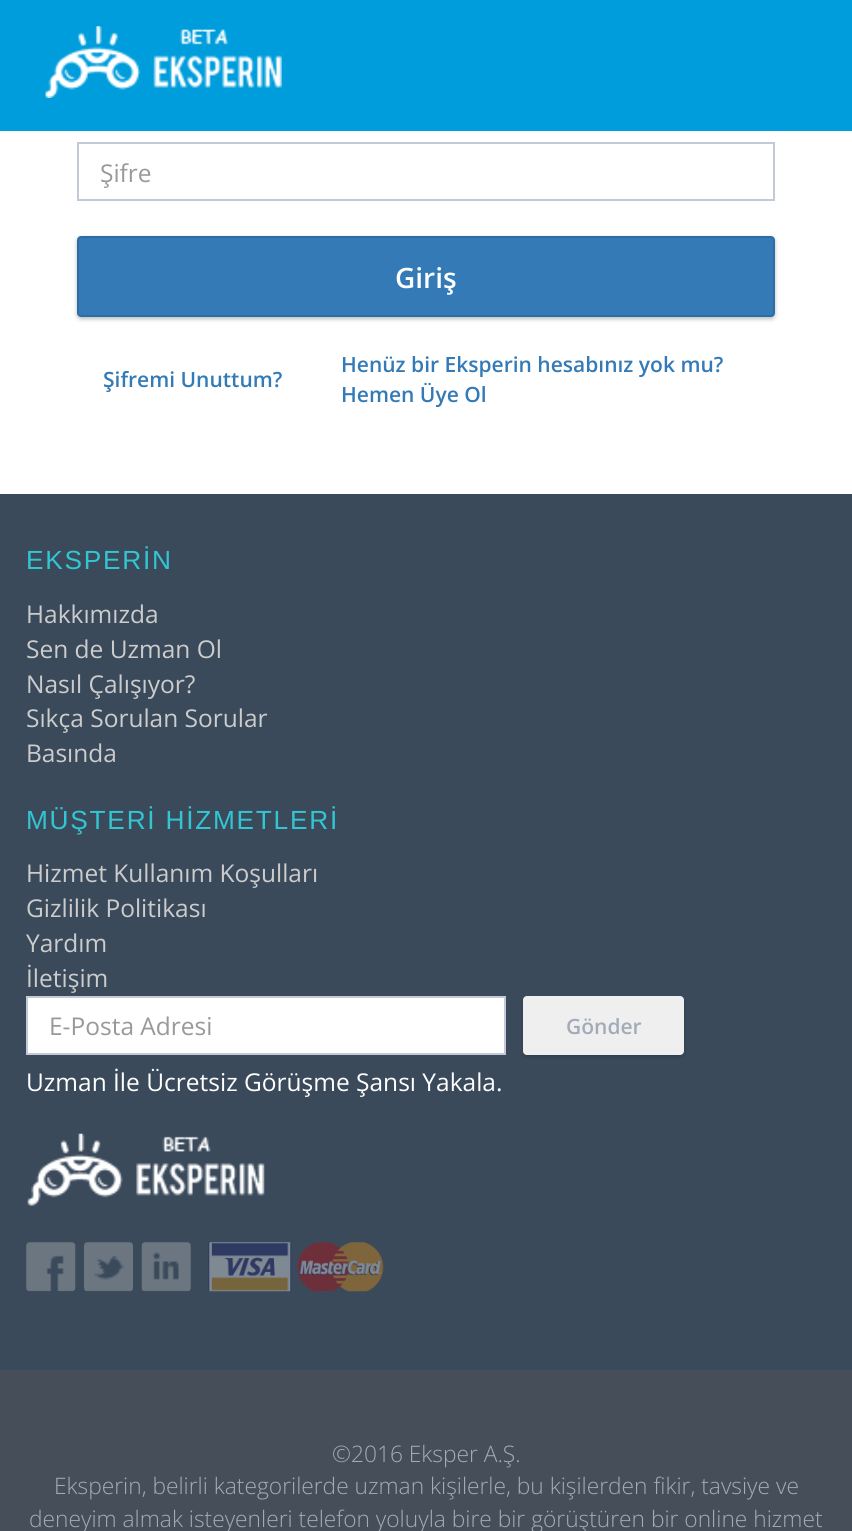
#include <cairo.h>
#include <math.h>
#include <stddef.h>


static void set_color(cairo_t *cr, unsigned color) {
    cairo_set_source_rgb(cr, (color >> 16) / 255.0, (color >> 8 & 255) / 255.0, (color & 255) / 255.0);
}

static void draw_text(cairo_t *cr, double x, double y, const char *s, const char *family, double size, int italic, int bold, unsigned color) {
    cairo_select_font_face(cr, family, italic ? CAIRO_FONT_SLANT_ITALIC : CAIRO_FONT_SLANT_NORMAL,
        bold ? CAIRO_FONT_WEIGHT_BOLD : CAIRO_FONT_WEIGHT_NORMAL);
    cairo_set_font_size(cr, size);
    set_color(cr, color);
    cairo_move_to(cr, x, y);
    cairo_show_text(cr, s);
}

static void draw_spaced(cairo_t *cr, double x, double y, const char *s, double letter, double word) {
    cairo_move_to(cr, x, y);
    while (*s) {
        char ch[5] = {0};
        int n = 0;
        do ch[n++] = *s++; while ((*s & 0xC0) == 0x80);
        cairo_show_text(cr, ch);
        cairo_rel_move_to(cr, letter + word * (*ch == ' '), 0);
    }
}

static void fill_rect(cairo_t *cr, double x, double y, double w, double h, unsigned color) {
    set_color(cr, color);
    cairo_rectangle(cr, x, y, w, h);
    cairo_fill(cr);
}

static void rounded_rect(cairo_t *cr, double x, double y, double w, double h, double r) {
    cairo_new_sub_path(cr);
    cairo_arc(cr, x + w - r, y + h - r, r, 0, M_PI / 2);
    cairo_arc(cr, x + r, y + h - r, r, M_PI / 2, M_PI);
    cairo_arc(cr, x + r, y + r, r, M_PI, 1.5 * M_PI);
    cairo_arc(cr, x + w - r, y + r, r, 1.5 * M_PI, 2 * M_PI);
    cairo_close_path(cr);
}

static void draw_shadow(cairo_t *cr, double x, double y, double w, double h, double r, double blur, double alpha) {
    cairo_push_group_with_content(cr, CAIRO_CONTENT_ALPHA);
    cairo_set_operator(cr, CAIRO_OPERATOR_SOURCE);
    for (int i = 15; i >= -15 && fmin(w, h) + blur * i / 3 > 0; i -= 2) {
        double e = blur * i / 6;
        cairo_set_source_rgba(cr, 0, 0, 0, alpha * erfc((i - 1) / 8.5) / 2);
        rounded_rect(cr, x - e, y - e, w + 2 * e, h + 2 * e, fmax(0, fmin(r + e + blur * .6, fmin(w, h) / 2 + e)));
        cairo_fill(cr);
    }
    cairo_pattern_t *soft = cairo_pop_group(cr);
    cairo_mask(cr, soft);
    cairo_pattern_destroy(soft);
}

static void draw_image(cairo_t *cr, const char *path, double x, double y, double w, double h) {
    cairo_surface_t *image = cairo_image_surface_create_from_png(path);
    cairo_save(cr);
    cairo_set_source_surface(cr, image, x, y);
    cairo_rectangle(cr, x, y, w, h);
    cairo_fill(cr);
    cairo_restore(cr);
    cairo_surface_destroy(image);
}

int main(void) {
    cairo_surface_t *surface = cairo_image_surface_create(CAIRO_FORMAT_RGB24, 852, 1531);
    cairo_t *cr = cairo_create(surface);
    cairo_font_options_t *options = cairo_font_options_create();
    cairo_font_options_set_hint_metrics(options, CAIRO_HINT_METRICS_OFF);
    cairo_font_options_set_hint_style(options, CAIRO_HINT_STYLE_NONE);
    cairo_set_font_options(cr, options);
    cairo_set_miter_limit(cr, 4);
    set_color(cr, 0xFFFFFF);
    cairo_paint(cr);
    fill_rect(cr, 0, 0, 852, 131, 0x009DDC);
    draw_image(cr, "assets/img1.png", 45, 26, 237, 72);
    cairo_rectangle(cr, 78, 143, 696, 57);
    set_color(cr, 0xC2CAD8);
    cairo_stroke(cr);
    draw_text(cr, 100, 182, "Şifre", "Open Sans", 24.5, 0, 0, 0x999999);
    set_color(cr, 0x000000);
    draw_shadow(cr, 77, 238, 698, 81, 4, 2, 0.18);
    draw_shadow(cr, 77, 238, 698, 81, 4, 2.5, 0.1);
    set_color(cr, 0x337AB7);
    rounded_rect(cr, 78, 237, 696, 79, 3);
    cairo_fill_preserve(cr);
    set_color(cr, 0x2E6DA4);
    cairo_stroke(cr);
    draw_text(cr, 395, 288, "Giriş", "Open Sans SemiBold", 28, 0, 0, 0xFFFFFF);
    draw_text(cr, 103, 387, "Şifremi Unuttum?", "Open Sans SemiBold", 21, 0, 0, 0x337AB7);
    draw_text(cr, 341, 372, "Henüz bir Eksperin hesabınız yok mu?", "Open Sans SemiBold", 21, 0, 0, 0x337AB7);
    draw_text(cr, 341, 402, "Hemen Üye Ol", "Open Sans SemiBold", 21, 0, 0, 0x337AB7);
    fill_rect(cr, 0, 494, 852, 876, 0x3A4A5B);
    cairo_select_font_face(cr, "Liberation Sans", CAIRO_FONT_SLANT_NORMAL, CAIRO_FONT_WEIGHT_NORMAL);
    cairo_set_font_size(cr, 26.25);
    set_color(cr, 0x32C5D2);
    draw_spaced(cr, 26, 569, "EKSPERİN", 1.75, 0);
    draw_text(cr, 26, 623, "Hakkımızda", "Open Sans", 24.5, 0, 0, 0xCCCCCC);
    draw_text(cr, 26, 658, "Sen de Uzman Ol", "Open Sans", 24.5, 0, 0, 0xCCCCCC);
    draw_text(cr, 26, 693, "Nasıl Çalışıyor?", "Open Sans", 24.5, 0, 0, 0xCCCCCC);
    draw_text(cr, 26, 727, "Sıkça Sorulan Sorular", "Open Sans", 24.5, 0, 0, 0xCCCCCC);
    draw_text(cr, 26, 762, "Basında", "Open Sans", 24.5, 0, 0, 0xCCCCCC);
    cairo_select_font_face(cr, "Liberation Sans", CAIRO_FONT_SLANT_NORMAL, CAIRO_FONT_WEIGHT_NORMAL);
    cairo_set_font_size(cr, 26.25);
    set_color(cr, 0x32C5D2);
    draw_spaced(cr, 26, 829, "MÜŞTERİ HİZMETLERİ", 1.75, 0);
    draw_text(cr, 26, 882, "Hizmet Kullanım Koşulları", "Open Sans", 24.5, 0, 0, 0xCCCCCC);
    draw_text(cr, 26, 917, "Gizlilik Politikası", "Open Sans", 24.5, 0, 0, 0xCCCCCC);
    draw_text(cr, 26, 952, "Yardım", "Open Sans", 24.5, 0, 0, 0xCCCCCC);
    draw_text(cr, 26, 987, "İletişim", "Open Sans", 24.5, 0, 0, 0xCCCCCC);
    set_color(cr, 0xFFFFFF);
    cairo_rectangle(cr, 27, 997, 478, 57);
    cairo_fill_preserve(cr);
    set_color(cr, 0xC2CAD8);
    cairo_stroke(cr);
    draw_text(cr, 49, 1035, "E-Posta Adresi", "Open Sans", 24.5, 0, 0, 0x999999);
    set_color(cr, 0x000000);
    draw_shadow(cr, 523, 998, 161, 59, 4, 2, 0.18);
    set_color(cr, 0xEFEFEF);
    rounded_rect(cr, 523, 996, 161, 59, 4);
    cairo_fill(cr);
    draw_text(cr, 566, 1034, "Gönder", "Open Sans SemiBold", 21, 0, 0, 0xA2ABB7);
    draw_text(cr, 26, 1091, "Uzman İle Ücretsiz Görüşme Şansı Yakala.", "Open Sans", 24.5, 0, 0, 0xFFFFFF);
    draw_image(cr, "assets/img2.png", 27, 1133, 238, 73);
    draw_image(cr, "assets/img3.png", 26, 1242, 50, 50);
    draw_image(cr, "assets/img4.png", 84, 1242, 49, 50);
    draw_image(cr, "assets/img5.png", 141, 1242, 50, 50);
    draw_image(cr, "assets/img6.png", 208, 1242, 176, 50);
    fill_rect(cr, 0, 1370, 852, 161, 0x464E59);
    draw_text(cr, 332, 1462, "©2016 Eksper A.Ş.", "Open Sans Light", 22.75, 0, 0, 0xA2ABB7);
    draw_text(cr, 54, 1494, "Eksperin, belirli kategorilerde uzman kişilerle, bu kişilerden fikir, tavsiye ve", "Open Sans Light", 22.75, 0, 0, 0xA2ABB7);
    draw_text(cr, 29, 1527, "deneyim almak isteyenleri telefon yoluyla bire bir görüştüren bir online hizmet", "Open Sans Light", 22.75, 0, 0, 0xA2ABB7);
    cairo_surface_write_to_png(surface, "output.png");
    cairo_font_options_destroy(options);
    cairo_destroy(cr);
    cairo_surface_destroy(surface);
    return 0;
}
